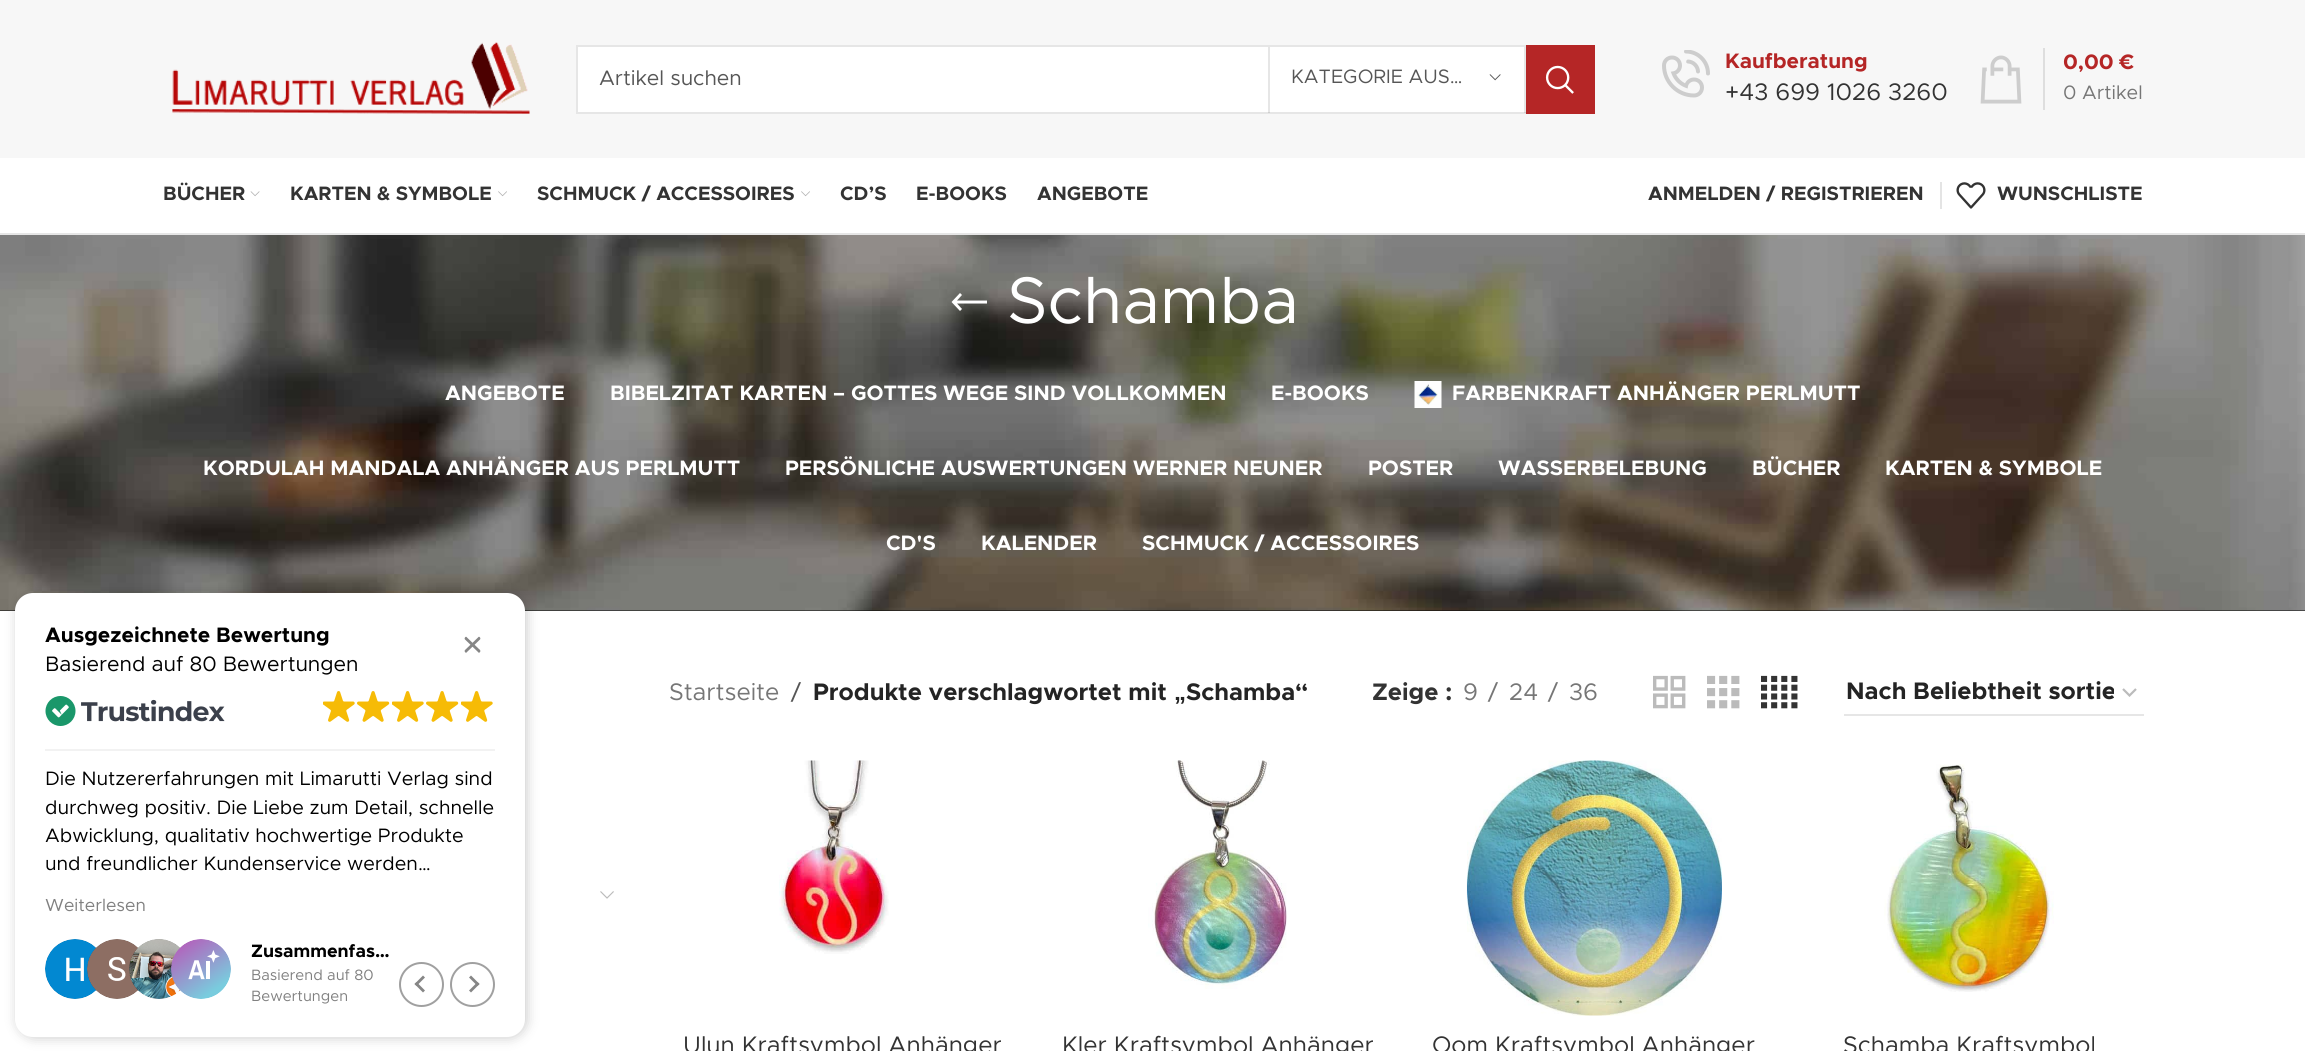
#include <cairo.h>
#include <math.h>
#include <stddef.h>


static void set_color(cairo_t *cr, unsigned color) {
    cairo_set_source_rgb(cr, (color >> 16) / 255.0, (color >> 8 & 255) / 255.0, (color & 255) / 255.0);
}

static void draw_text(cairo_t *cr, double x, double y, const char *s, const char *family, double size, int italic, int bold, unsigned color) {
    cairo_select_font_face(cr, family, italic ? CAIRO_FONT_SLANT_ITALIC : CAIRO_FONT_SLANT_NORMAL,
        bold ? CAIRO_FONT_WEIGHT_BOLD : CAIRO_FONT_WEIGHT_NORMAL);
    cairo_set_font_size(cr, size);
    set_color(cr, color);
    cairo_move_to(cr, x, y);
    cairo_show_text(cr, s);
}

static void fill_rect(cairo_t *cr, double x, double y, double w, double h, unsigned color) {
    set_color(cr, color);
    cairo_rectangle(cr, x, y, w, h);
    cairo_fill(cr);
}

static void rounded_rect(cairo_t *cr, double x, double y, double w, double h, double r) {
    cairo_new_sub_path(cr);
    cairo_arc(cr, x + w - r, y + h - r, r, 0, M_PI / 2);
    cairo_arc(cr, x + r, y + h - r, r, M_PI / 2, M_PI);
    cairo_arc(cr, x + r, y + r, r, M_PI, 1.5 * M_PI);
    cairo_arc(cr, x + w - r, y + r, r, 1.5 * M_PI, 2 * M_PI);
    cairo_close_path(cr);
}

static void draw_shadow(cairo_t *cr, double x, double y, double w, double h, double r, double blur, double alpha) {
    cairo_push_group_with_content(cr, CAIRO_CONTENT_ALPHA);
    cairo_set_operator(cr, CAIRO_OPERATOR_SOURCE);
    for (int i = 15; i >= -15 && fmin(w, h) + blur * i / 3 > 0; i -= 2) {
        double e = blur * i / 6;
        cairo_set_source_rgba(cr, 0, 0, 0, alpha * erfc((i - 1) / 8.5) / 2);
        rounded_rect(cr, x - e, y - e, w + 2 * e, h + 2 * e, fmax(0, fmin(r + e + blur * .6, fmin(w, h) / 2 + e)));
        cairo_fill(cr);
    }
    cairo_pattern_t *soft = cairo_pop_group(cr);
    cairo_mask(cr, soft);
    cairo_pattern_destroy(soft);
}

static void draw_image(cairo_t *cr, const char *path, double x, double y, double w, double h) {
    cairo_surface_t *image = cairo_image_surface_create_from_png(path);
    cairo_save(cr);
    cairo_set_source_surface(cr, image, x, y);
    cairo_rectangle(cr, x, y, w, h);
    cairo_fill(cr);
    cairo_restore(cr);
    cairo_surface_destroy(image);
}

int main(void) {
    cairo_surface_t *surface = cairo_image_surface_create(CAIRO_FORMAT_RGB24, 2305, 1051);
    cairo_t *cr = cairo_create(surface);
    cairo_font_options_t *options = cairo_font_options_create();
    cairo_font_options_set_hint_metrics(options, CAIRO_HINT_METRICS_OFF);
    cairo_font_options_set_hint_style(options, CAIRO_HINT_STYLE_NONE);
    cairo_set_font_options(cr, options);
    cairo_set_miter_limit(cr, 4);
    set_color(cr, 0xFFFFFF);
    cairo_paint(cr);
    fill_rect(cr, 0, 0, 2305, 158, 0xF7F7F7);
    draw_image(cr, "assets/img1.png", 172, 42, 358, 72);
    fill_rect(cr, 578, 47, 948, 65, 0xFFFFFF);
    cairo_rectangle(cr, 577, 46, 1017, 67);
    set_color(cr, 0xE6E6E6);
    cairo_stroke(cr);
    draw_text(cr, 599, 85, "Artikel suchen", "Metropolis", 21, 0, 0, 0x565656);
    cairo_set_source_rgba(cr, 0, 0, 0, 0.1);
    cairo_rectangle(cr, 1524, 47, 2, 66);
    cairo_fill(cr);
    cairo_rectangle(cr, 1268, 47, 2, 66);
    cairo_fill(cr);
    draw_text(cr, 1291, 83, "KATEGORIE AUS…", "Metropolis", 19.5, 0, 0, 0x565656);
    draw_image(cr, "assets/img2.png", 1489, 74, 12, 7);
    fill_rect(cr, 1526, 45, 69, 69, 0xB52626);
    draw_image(cr, "assets/img3.png", 1545, 65, 29, 29);
    draw_image(cr, "assets/img4.png", 1662, 50, 48, 48);
    draw_text(cr, 1725, 68, "Kaufberatung", "Metropolis", 21, 0, 1, 0xB52626);
    draw_text(cr, 1725, 100, "+43 699 1026 3260", "Metropolis", 24, 0, 0, 0x333333);
    draw_image(cr, "assets/img5.png", 1980, 55, 42, 49);
    fill_rect(cr, 2043, 48, 2, 62, 0xDEDEDE);
    draw_text(cr, 2063, 69, "0,00 €", "Metropolis", 21, 0, 1, 0xB52626);
    draw_text(cr, 2063, 99, "0 Artikel", "Metropolis", 19.5, 0, 0, 0x767676);
    fill_rect(cr, 0, 233, 2305, 2, 0xE6E6E6);
    draw_text(cr, 163, 200, "BÜCHER", "Metropolis", 19.5, 0, 1, 0x333333);
    draw_image(cr, "assets/img6.png", 250, 191, 10, 6);
    draw_text(cr, 290, 200, "KARTEN & SYMBOLE", "Metropolis", 19.5, 0, 1, 0x333333);
    draw_image(cr, "assets/img7.png", 498, 191, 9, 6);
    draw_text(cr, 537, 200, "SCHMUCK / ACCESSOIRES", "Metropolis", 19.5, 0, 1, 0x333333);
    draw_image(cr, "assets/img7.png", 801, 191, 9, 6);
    draw_text(cr, 840, 200, "CD’S", "Metropolis", 19.5, 0, 1, 0x333333);
    draw_text(cr, 916, 200, "E-BOOKS", "Metropolis", 19.5, 0, 1, 0x333333);
    draw_text(cr, 1037, 200, "ANGEBOTE", "Metropolis", 19.5, 0, 1, 0x333333);
    draw_text(cr, 1648, 200, "ANMELDEN / REGISTRIEREN", "Metropolis", 19.5, 0, 1, 0x333333);
    fill_rect(cr, 1940, 182, 2, 27, 0xE4E4E4);
    draw_image(cr, "assets/img8.png", 1956, 182, 30, 27);
    draw_text(cr, 1997, 200, "WUNSCHLISTE", "Metropolis", 19.5, 0, 1, 0x333333);
    fill_rect(cr, 0, 610, 2305, 1, 0x0A0A0A);
    draw_image(cr, "assets/img9.png", 0, 235, 2305, 376);
    set_color(cr, 0xFFFFFF);
    cairo_new_path(cr);
    cairo_move_to(cr, 962, 309);
    cairo_line_to(cr, 957, 303.5);
    cairo_line_to(cr, 987, 303.5);
    cairo_line_to(cr, 987, 300.5);
    cairo_line_to(cr, 957, 300.5);
    cairo_line_to(cr, 962, 295);
    cairo_line_to(cr, 960, 293);
    cairo_line_to(cr, 951.5, 302);
    cairo_line_to(cr, 960, 311);
    cairo_close_path(cr);
    cairo_fill(cr);
    draw_text(cr, 1007, 323, "Schamba", "Metropolis", 66, 0, 0, 0xFFFFFF);
    draw_text(cr, 445, 400, "ANGEBOTE", "Metropolis", 21, 0, 1, 0xFFFFFF);
    draw_text(cr, 610, 400, "BIBELZITAT KARTEN – GOTTES WEGE SIND VOLLKOMMEN", "Metropolis", 21, 0, 1, 0xFFFFFF);
    draw_text(cr, 1271, 400, "E-BOOKS", "Metropolis", 21, 0, 1, 0xFFFFFF);
    draw_image(cr, "assets/img10.png", 1414, 381, 28, 27);
    draw_text(cr, 1452, 400, "FARBENKRAFT ANHÄNGER PERLMUTT", "Metropolis", 21, 0, 1, 0xFFFFFF);
    draw_text(cr, 203, 475, "KORDULAH MANDALA ANHÄNGER AUS PERLMUTT", "Metropolis", 21, 0, 1, 0xFFFFFF);
    draw_text(cr, 785, 475, "PERSÖNLICHE AUSWERTUNGEN WERNER NEUNER", "Metropolis", 21, 0, 1, 0xFFFFFF);
    draw_text(cr, 1368, 475, "POSTER", "Metropolis", 21, 0, 1, 0xFFFFFF);
    draw_text(cr, 1498, 475, "WASSERBELEBUNG", "Metropolis", 21, 0, 1, 0xFFFFFF);
    draw_text(cr, 1752, 475, "BÜCHER", "Metropolis", 21, 0, 1, 0xFFFFFF);
    draw_text(cr, 1885, 475, "KARTEN & SYMBOLE", "Metropolis", 21, 0, 1, 0xFFFFFF);
    draw_text(cr, 886, 550, "CD'S", "Metropolis", 21, 0, 1, 0xFFFFFF);
    draw_text(cr, 981, 550, "KALENDER", "Metropolis", 21, 0, 1, 0xFFFFFF);
    draw_text(cr, 1142, 550, "SCHMUCK / ACCESSOIRES", "Metropolis", 21, 0, 1, 0xFFFFFF);
    draw_image(cr, "assets/img11.png", 600, 891, 14, 8);
    draw_text(cr, 669, 700, "Startseite", "Metropolis", 24, 0, 0, 0x767676);
    draw_text(cr, 791, 700, "/", "Metropolis", 24, 0, 0, 0x565656);
    draw_text(cr, 813, 700, "Produkte verschlagwortet mit", "Metropolis", 24, 0, 1, 0x242424);
    draw_text(cr, 1174, 700, "„", "Liberation Sans", 24, 0, 1, 0x242424);
    draw_text(cr, 1186, 700, "Schamba“", "Metropolis", 24, 0, 1, 0x242424);
    draw_text(cr, 1372, 700, "Zeige :", "Metropolis", 24, 0, 1, 0x333333);
    draw_text(cr, 1463, 700, "9", "Metropolis", 24, 0, 0, 0x767676);
    draw_text(cr, 1488, 700, "/", "Metropolis", 24, 0, 0, 0x767676);
    draw_text(cr, 1509, 700, "24", "Metropolis", 24, 0, 0, 0x767676);
    draw_text(cr, 1548, 700, "/", "Metropolis", 24, 0, 0, 0x767676);
    draw_text(cr, 1569, 700, "36", "Metropolis", 24, 0, 0, 0x767676);
    draw_image(cr, "assets/img12.png", 1653, 675, 33, 34);
    draw_image(cr, "assets/img13.png", 1707, 675, 33, 34);
    draw_image(cr, "assets/img14.png", 1761, 675, 37, 34);
    cairo_new_path(cr);
    cairo_move_to(cr, 2123, 689);
    cairo_line_to(cr, 2129.5, 695.5);
    cairo_line_to(cr, 2136, 689);
    set_color(cr, 0xBBBBBB);
    cairo_set_line_width(cr, 2.2);
    cairo_stroke(cr);
    fill_rect(cr, 1844, 714, 300, 2, 0xE6E6E6);
    cairo_save(cr);
    cairo_rectangle(cr, 1847, 678, 267, 29);
    cairo_clip(cr);
    draw_text(cr, 1846, 699, "Nach Beliebtheit sortie", "Metropolis", 24, 0, 1, 0x242424);
    cairo_restore(cr);
    draw_image(cr, "assets/img15.png", 779, 760, 110, 194);
    draw_text(cr, 683, 1053, "Ulun Kraftsymbol Anhänger", "Metropolis", 24, 0, 0, 0x333333);
    draw_image(cr, "assets/img16.png", 1148, 760, 139, 229);
    draw_text(cr, 1062, 1053, "Kler Kraftsymbol Anhänger", "Metropolis", 24, 0, 0, 0x333333);
    draw_image(cr, "assets/img17.png", 1466, 760, 256, 256);
    draw_text(cr, 1432, 1053, "Oom Kraftsymbol Anhänger", "Metropolis", 24, 0, 0, 0x333333);
    draw_image(cr, "assets/img18.png", 1884, 764, 170, 228);
    draw_text(cr, 1843, 1053, "Schamba Kraftsymbol", "Metropolis", 24, 0, 0, 0x333333);
    set_color(cr, 0x000000);
    draw_shadow(cr, 17, 594, 510, 444, 18, 6, 0.2);
    set_color(cr, 0xFFFFFF);
    rounded_rect(cr, 15, 593, 510, 444, 18);
    cairo_fill(cr);
    draw_text(cr, 45, 642, "Ausgezeichnete Bewertung", "Metropolis", 21, 0, 1, 0x000000);
    draw_text(cr, 45, 671, "Basierend auf 80 Bewertungen", "Metropolis", 21, 0, 0, 0x000000);
    fill_rect(cr, 45, 749, 450, 2, 0xF2F2F2);
    draw_image(cr, "assets/img19.png", 45, 696, 180, 30);
    draw_image(cr, "assets/img20.png", 323, 691, 32, 31);
    draw_image(cr, "assets/img21.png", 357, 691, 33, 31);
    draw_image(cr, "assets/img20.png", 392, 691, 32, 31);
    draw_image(cr, "assets/img21.png", 426, 691, 33, 31);
    draw_image(cr, "assets/img20.png", 461, 691, 32, 31);
    set_color(cr, 0x868686);
    cairo_new_path(cr);
    cairo_move_to(cr, 467, 637.5);
    cairo_line_to(cr, 480, 650);
    cairo_curve_to(cr, 480.5, 650.5, 480.5, 651.5, 480, 652);
    cairo_curve_to(cr, 479.5, 653, 478.5, 653, 478, 652);
    cairo_line_to(cr, 465, 639.5);
    cairo_curve_to(cr, 464.5, 639, 464.5, 638, 465, 637.5);
    cairo_curve_to(cr, 465.5, 636.5, 466.5, 636.5, 467, 637.5);
    cairo_close_path(cr);
    cairo_fill(cr);
    cairo_new_path(cr);
    cairo_move_to(cr, 465, 650);
    cairo_line_to(cr, 478, 637.5);
    cairo_curve_to(cr, 478.5, 636.5, 479.5, 636.5, 480, 637.5);
    cairo_curve_to(cr, 480.5, 638, 480.5, 639, 480, 639.5);
    cairo_line_to(cr, 467, 652);
    cairo_curve_to(cr, 466.5, 653, 465.5, 653, 465, 652);
    cairo_curve_to(cr, 464.5, 651.5, 464.5, 650.5, 465, 650);
    cairo_close_path(cr);
    cairo_fill(cr);
    draw_text(cr, 45, 785, "Die Nutzererfahrungen mit Limarutti Verlag sind", "Metropolis", 19.5, 0, 0, 0x000000);
    draw_text(cr, 45, 814, "durchweg positiv. Die Liebe zum Detail, schnelle", "Metropolis", 19.5, 0, 0, 0x000000);
    draw_text(cr, 45, 842, "Abwicklung, qualitativ hochwertige Produkte", "Metropolis", 19.5, 0, 0, 0x000000);
    draw_text(cr, 45, 870, "und freundlicher Kundenservice werden…", "Metropolis", 19.5, 0, 0, 0x000000);
    draw_text(cr, 45, 911, "Weiterlesen", "Metropolis", 17.5, 0, 0, 0x808080);
    draw_image(cr, "assets/img22.png", 45, 939, 51, 60);
    draw_image(cr, "assets/img23.png", 87, 939, 51, 60);
    draw_image(cr, "assets/img24.png", 129, 939, 52, 60);
    draw_image(cr, "assets/img25.png", 171, 939, 60, 60);
    draw_text(cr, 251, 957, "Zusammenfas…", "Metropolis", 18, 0, 1, 0x000000);
    draw_text(cr, 251, 980, "Basierend auf 80", "Metropolis", 15, 0, 0, 0x808080);
    draw_text(cr, 251, 1001, "Bewertungen", "Metropolis", 15, 0, 0, 0x808080);
    cairo_new_path(cr);
    cairo_arc(cr, 421.5, 984.5, 21.5, 0, 2 * M_PI);
    set_color(cr, 0xA0A0A0);
    cairo_set_line_width(cr, 2);
    cairo_stroke(cr);
    set_color(cr, 0x868686);
    cairo_new_path(cr);
    cairo_move_to(cr, 414.5, 984);
    cairo_line_to(cr, 423, 975.5);
    cairo_line_to(cr, 425, 977.5);
    cairo_line_to(cr, 416.5, 986);
    cairo_close_path(cr);
    cairo_fill(cr);
    cairo_new_path(cr);
    cairo_move_to(cr, 414.5, 984);
    cairo_line_to(cr, 416.5, 982);
    cairo_line_to(cr, 425, 990.5);
    cairo_line_to(cr, 423, 992.5);
    cairo_close_path(cr);
    cairo_fill(cr);
    cairo_arc(cr, 472.5, 984.5, 21.5, 0, 2 * M_PI);
    set_color(cr, 0xA0A0A0);
    cairo_stroke(cr);
    set_color(cr, 0x868686);
    cairo_new_path(cr);
    cairo_move_to(cr, 479.5, 984);
    cairo_line_to(cr, 471, 992.5);
    cairo_line_to(cr, 469, 990.5);
    cairo_line_to(cr, 477.5, 982);
    cairo_close_path(cr);
    cairo_fill(cr);
    cairo_new_path(cr);
    cairo_move_to(cr, 479.5, 984);
    cairo_line_to(cr, 477.5, 986);
    cairo_line_to(cr, 469, 977.5);
    cairo_line_to(cr, 471, 975.5);
    cairo_close_path(cr);
    cairo_fill(cr);
    cairo_surface_write_to_png(surface, "output.png");
    cairo_font_options_destroy(options);
    cairo_destroy(cr);
    cairo_surface_destroy(surface);
    return 0;
}
